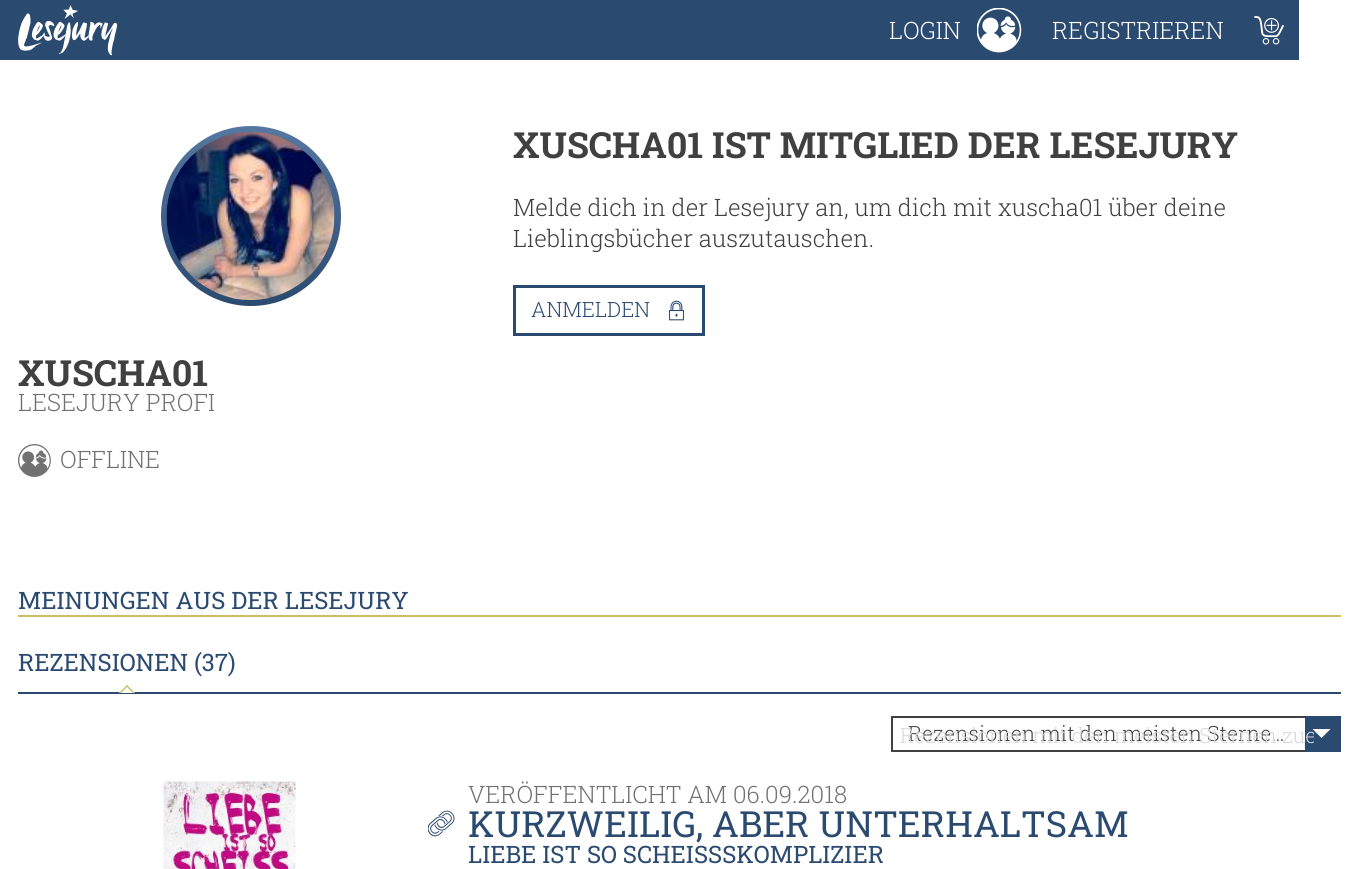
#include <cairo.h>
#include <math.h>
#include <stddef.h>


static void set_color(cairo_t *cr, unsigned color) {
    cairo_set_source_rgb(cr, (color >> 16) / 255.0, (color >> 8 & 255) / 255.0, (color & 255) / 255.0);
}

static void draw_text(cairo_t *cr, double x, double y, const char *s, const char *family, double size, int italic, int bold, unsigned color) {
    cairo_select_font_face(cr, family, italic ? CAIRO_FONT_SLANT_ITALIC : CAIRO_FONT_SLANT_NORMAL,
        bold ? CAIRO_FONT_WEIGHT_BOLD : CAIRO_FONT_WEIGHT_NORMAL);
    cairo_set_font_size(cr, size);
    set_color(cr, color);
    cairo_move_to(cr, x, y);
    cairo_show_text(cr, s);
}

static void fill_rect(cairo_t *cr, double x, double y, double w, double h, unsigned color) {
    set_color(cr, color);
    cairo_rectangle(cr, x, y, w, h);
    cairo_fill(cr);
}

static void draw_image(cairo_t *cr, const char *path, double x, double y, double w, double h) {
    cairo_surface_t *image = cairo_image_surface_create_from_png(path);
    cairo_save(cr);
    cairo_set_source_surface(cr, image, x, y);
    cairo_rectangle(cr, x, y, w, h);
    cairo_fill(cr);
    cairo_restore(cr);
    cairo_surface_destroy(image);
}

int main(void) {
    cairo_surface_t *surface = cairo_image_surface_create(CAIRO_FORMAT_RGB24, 1358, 869);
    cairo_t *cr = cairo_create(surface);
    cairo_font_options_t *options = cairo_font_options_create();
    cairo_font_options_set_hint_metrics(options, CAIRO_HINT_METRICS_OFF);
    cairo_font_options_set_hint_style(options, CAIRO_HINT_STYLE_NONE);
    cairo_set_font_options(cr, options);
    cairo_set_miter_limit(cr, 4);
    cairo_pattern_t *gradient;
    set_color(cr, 0xFFFFFF);
    cairo_paint(cr);
    fill_rect(cr, 0, 0, 1299, 60, 0x2B4A70);
    draw_image(cr, "assets/img1.png", 18, 5, 99, 51);
    draw_text(cr, 889, 39, "LOGIN", "Roboto Slab Light", 24, 0, 0, 0xFFFFFF);
    draw_image(cr, "assets/img2.png", 977, 8, 45, 45);
    draw_text(cr, 1052, 39, "REGISTRIEREN", "Roboto Slab Light", 24, 0, 0, 0xFFFFFF);
    draw_image(cr, "assets/img3.png", 1254, 16, 30, 29);
    draw_text(cr, 513, 158, "XUSCHA01 IST MITGLIED DER LESEJURY", "Roboto Slab", 36, 0, 1, 0x404040);
    draw_text(cr, 513, 216, "Melde dich in der Lesejury an, um dich mit xuscha01 über deine", "Roboto Slab Light", 24, 0, 0, 0x404040);
    draw_text(cr, 513, 247, "Lieblingsbücher auszutauschen.", "Roboto Slab Light", 24, 0, 0, 0x404040);
    cairo_rectangle(cr, 514.5, 286.5, 189, 48);
    set_color(cr, 0x2B4A70);
    cairo_set_line_width(cr, 3);
    cairo_stroke(cr);
    draw_text(cr, 531, 317, "ANMELDEN", "Roboto Slab Light", 21, 0, 0, 0x2B4A70);
    draw_image(cr, "assets/img4.png", 669, 300, 15, 21);
    gradient = cairo_pattern_create_linear(251, 126, 251, 306);
    cairo_pattern_add_color_stop_rgba(gradient, 0, 0.337, 0.467, 0.627, 1);
    cairo_pattern_add_color_stop_rgba(gradient, 1, 0.169, 0.29, 0.439, 1);
    cairo_set_source(cr, gradient);
    cairo_pattern_destroy(gradient);
    cairo_arc(cr, 251, 216, 90, 0, 2 * M_PI);
    cairo_fill(cr);
    draw_image(cr, "assets/img5.png", 166, 132, 169, 168);
    draw_text(cr, 18, 386, "XUSCHA01", "Roboto Slab", 36, 0, 1, 0x404040);
    draw_text(cr, 18, 411, "LESEJURY PROFI", "Roboto Slab Light", 24, 0, 0, 0x717171);
    draw_image(cr, "assets/img6.png", 18, 444, 33, 33);
    draw_text(cr, 60, 468, "OFFLINE", "Roboto Slab Light", 24, 0, 0, 0x717171);
    fill_rect(cr, 18, 615, 1323, 2, 0xCEBD65);
    draw_text(cr, 18, 609, "MEINUNGEN AUS DER LESEJURY", "Roboto Slab", 24, 0, 0, 0x2B4A70);
    draw_text(cr, 18, 671, "REZENSIONEN (37)", "Roboto Slab", 24, 0, 0, 0x2B4A70);
    fill_rect(cr, 18, 692, 1323, 2, 0x2B4A70);
    cairo_save(cr);
    cairo_rectangle(cr, 18, 647, 1323, 46);
    cairo_clip(cr);
    set_color(cr, 0xFFFFFF);
    cairo_new_path(cr);
    cairo_move_to(cr, 127, 685);
    cairo_line_to(cr, 135.5, 693.5);
    cairo_line_to(cr, 127, 702);
    cairo_line_to(cr, 118.5, 693.5);
    cairo_close_path(cr);
    cairo_fill(cr);
    set_color(cr, 0xCEBD65);
    cairo_new_path(cr);
    cairo_move_to(cr, 127, 685);
    cairo_line_to(cr, 135.5, 693.5);
    cairo_line_to(cr, 134.5, 694.5);
    cairo_line_to(cr, 126, 686);
    cairo_close_path(cr);
    cairo_fill(cr);
    cairo_new_path(cr);
    cairo_move_to(cr, 127, 685);
    cairo_line_to(cr, 128, 686);
    cairo_line_to(cr, 119.5, 694.5);
    cairo_line_to(cr, 118.5, 693.5);
    cairo_close_path(cr);
    cairo_fill(cr);
    cairo_restore(cr);
    cairo_rectangle(cr, 892, 717, 448, 34);
    set_color(cr, 0x404040);
    cairo_set_line_width(cr, 2);
    cairo_stroke(cr);
    draw_text(cr, 908, 741, "Rezensionen mit den meisten Sterne…", "Roboto Slab Light", 21, 0, 0, 0x404040);
    fill_rect(cr, 1305, 716, 36, 36, 0x2B4A70);
    set_color(cr, 0xFFFFFF);
    cairo_new_path(cr);
    cairo_move_to(cr, 1312.5, 729);
    cairo_line_to(cr, 1330.5, 729);
    cairo_line_to(cr, 1321.5, 738);
    cairo_close_path(cr);
    cairo_fill(cr);
    cairo_save(cr);
    cairo_rectangle(cr, 900, 719, 414, 31);
    cairo_clip(cr);
    draw_text(cr, 900, 743, "Rezensionen mit den meisten Sternen zue", "Roboto Slab Light", 21, 0, 0, 0xD7D8D9);
    cairo_restore(cr);
    draw_image(cr, "assets/img7.png", 163, 781, 133, 88);
    draw_text(cr, 468, 803, "VERÖFFENTLICHT AM 06.09.2018", "Roboto Slab Light", 24, 0, 0, 0x717171);
    draw_image(cr, "assets/img8.png", 428, 810, 27, 27);
    draw_text(cr, 468, 837, "KURZWEILIG, ABER UNTERHALTSAM", "Roboto Slab", 36, 0, 0, 0x2B4A70);
    draw_text(cr, 468, 863, "LIEBE IST SO SCHEISSSKOMPLIZIER", "Roboto Slab", 24, 0, 0, 0x2B4A70);
    cairo_surface_write_to_png(surface, "output.png");
    cairo_font_options_destroy(options);
    cairo_destroy(cr);
    cairo_surface_destroy(surface);
    return 0;
}
